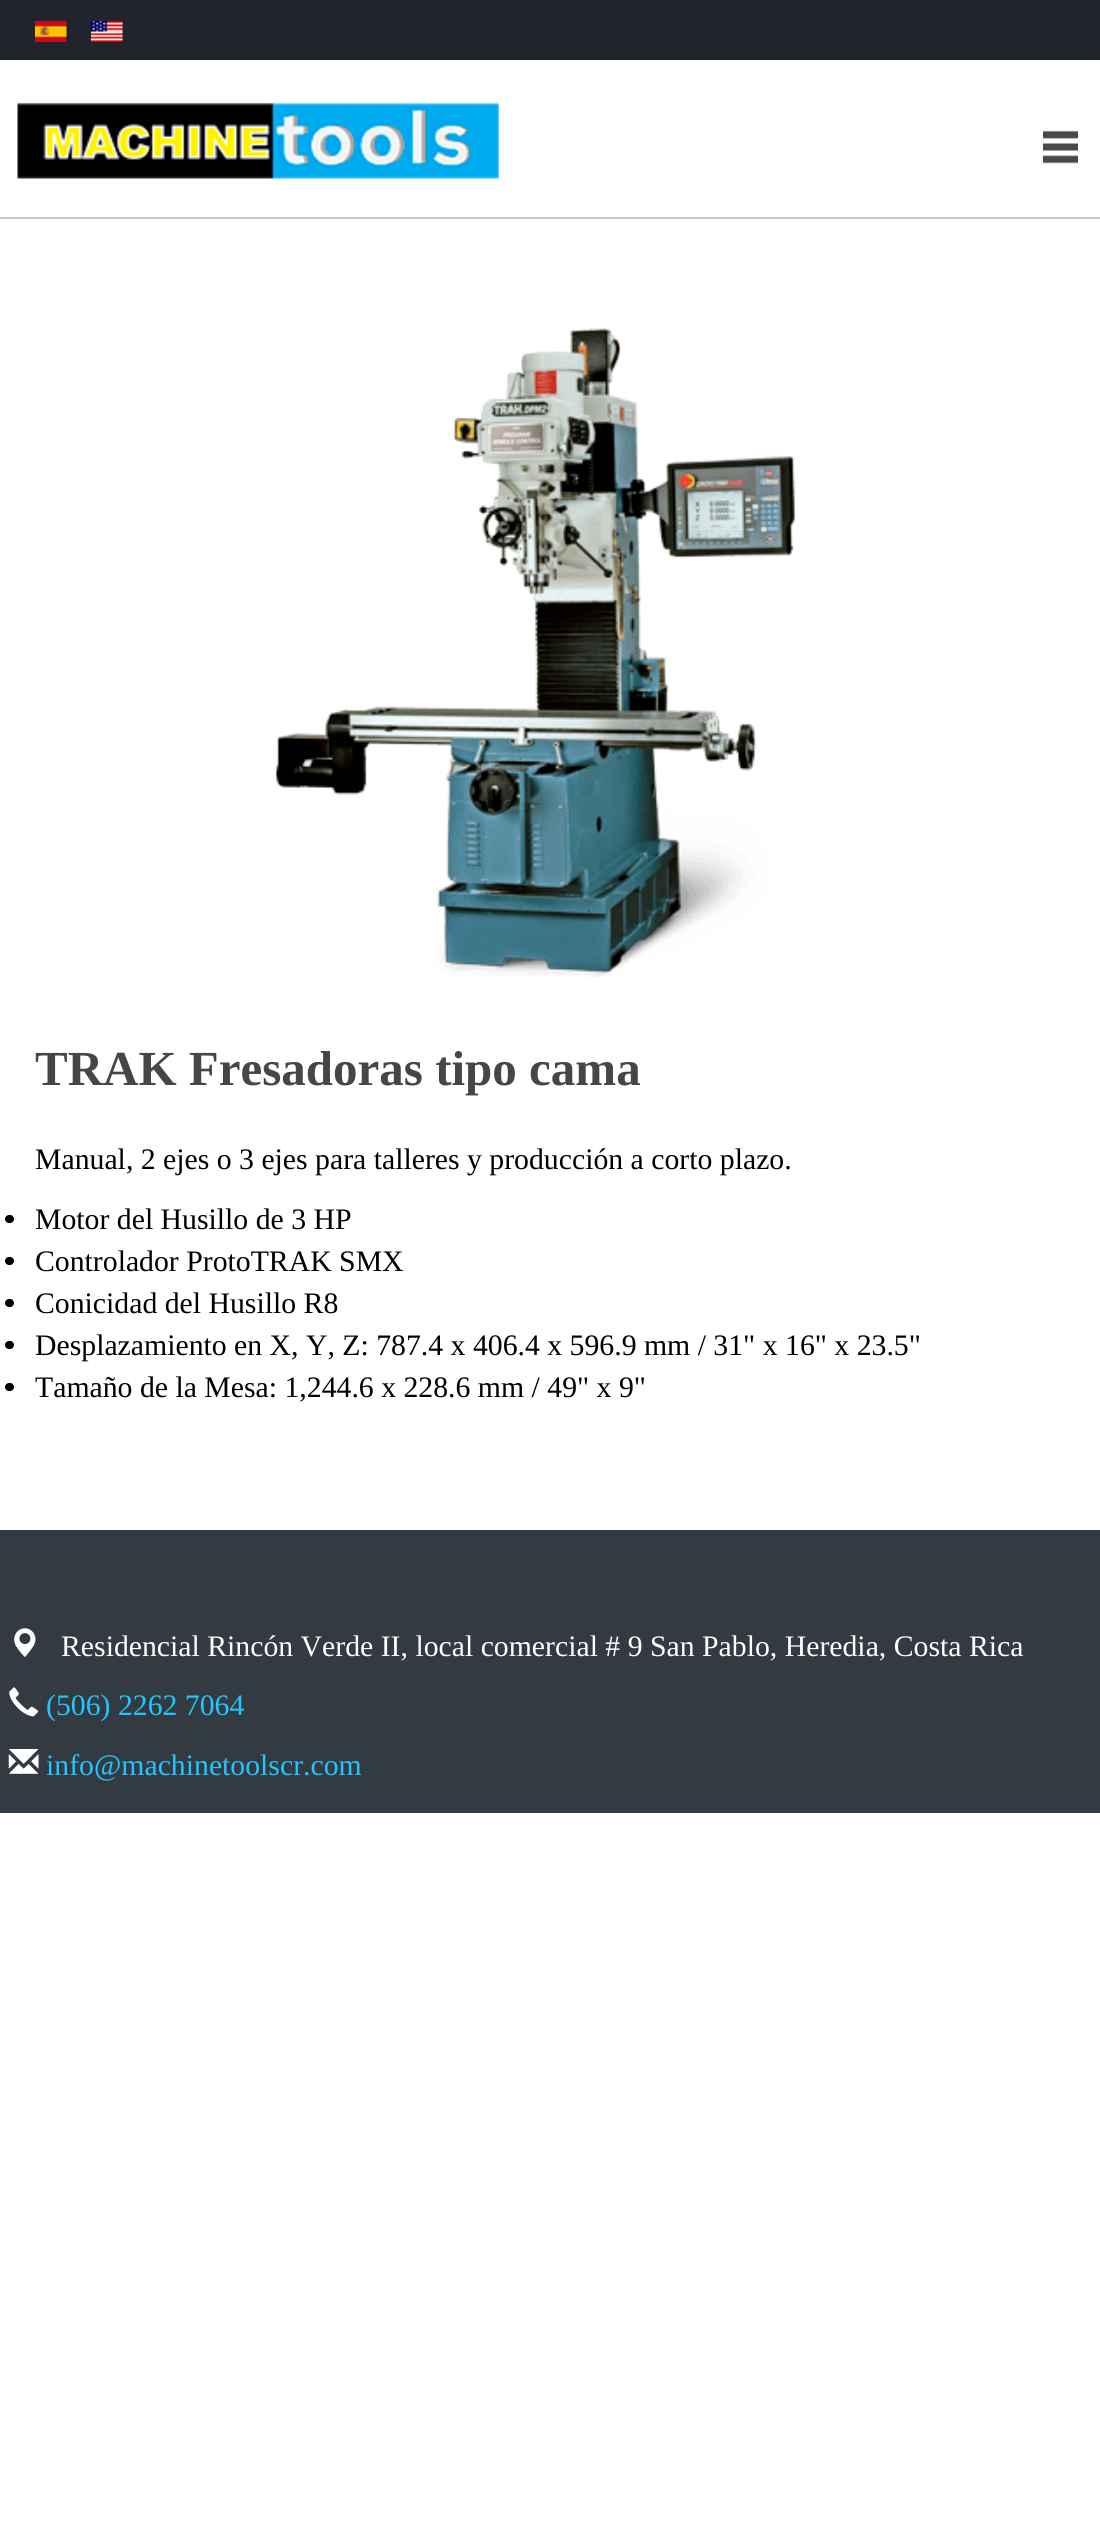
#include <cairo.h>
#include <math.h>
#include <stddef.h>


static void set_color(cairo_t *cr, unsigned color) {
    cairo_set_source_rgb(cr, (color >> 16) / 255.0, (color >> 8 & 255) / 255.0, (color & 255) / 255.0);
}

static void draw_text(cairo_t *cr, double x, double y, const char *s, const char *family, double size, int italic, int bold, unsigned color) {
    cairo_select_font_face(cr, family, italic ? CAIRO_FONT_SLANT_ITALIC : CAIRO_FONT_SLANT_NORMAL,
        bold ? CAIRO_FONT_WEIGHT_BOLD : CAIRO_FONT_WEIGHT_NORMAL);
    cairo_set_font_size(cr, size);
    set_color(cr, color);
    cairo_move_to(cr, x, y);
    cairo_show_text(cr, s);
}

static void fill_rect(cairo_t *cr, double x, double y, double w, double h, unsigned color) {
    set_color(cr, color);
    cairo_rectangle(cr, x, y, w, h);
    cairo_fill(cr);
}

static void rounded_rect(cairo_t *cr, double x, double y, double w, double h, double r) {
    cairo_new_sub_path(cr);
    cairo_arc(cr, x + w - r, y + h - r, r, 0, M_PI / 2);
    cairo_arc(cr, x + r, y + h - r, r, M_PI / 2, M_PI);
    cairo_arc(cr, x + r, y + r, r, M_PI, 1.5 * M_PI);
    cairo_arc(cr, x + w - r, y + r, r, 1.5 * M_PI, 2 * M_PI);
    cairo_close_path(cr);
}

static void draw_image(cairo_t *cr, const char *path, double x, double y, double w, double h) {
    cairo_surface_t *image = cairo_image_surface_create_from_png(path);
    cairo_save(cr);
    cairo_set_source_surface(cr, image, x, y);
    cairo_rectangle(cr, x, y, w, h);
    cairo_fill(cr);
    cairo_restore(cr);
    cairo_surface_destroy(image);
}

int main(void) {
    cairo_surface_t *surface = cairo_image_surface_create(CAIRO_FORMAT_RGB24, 1100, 2529);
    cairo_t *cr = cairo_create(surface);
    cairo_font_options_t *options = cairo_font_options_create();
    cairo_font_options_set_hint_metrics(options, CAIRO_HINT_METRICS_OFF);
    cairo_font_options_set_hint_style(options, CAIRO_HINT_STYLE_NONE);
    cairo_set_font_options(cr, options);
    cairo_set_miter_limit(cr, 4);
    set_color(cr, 0xFFFFFF);
    cairo_paint(cr);
    fill_rect(cr, 0, 0, 1100, 60, 0x21252B);
    draw_image(cr, "assets/img1.png", 35, 21, 32, 21);
    draw_image(cr, "assets/img2.png", 91, 21, 32, 21);
    fill_rect(cr, 0, 217, 1100, 2, 0xC9C9C9);
    draw_image(cr, "assets/img3.png", 17, 102, 482, 77);
    draw_image(cr, "assets/img4.png", 1043, 130, 35, 34);
    draw_image(cr, "assets/img5.png", 274, 328, 522, 649);
    draw_text(cr, 35, 1085, "TRAK Fresadoras tipo cama", "Liberation Serif", 49, 0, 1, 0x464646);
    draw_text(cr, 35, 1169, "Manual, 2 ejes o 3 ejes para talleres y producción a corto plazo.", "Liberation Serif", 29.75, 0, 0, 0x000000);
    rounded_rect(cr, 5, 1215, 9, 8, 4);
    cairo_fill(cr);
    draw_text(cr, 35, 1229, "Motor del Husillo de 3 HP", "Liberation Serif", 29.75, 0, 0, 0x000000);
    rounded_rect(cr, 5, 1257, 9, 8, 4);
    cairo_fill(cr);
    draw_text(cr, 35, 1271, "Controlador ProtoTRAK SMX", "Liberation Serif", 29.75, 0, 0, 0x000000);
    rounded_rect(cr, 5, 1299, 9, 8, 4);
    cairo_fill(cr);
    draw_text(cr, 35, 1313, "Conicidad del Husillo R8", "Liberation Serif", 29.75, 0, 0, 0x000000);
    rounded_rect(cr, 5, 1341, 9, 8, 4);
    cairo_fill(cr);
    draw_text(cr, 35, 1355, "Desplazamiento en X, Y, Z: 787.4 x 406.4 x 596.9 mm / 31\" x 16\" x 23.5\"", "Liberation Serif", 29.75, 0, 0, 0x000000);
    rounded_rect(cr, 5, 1383, 9, 8, 4);
    cairo_fill(cr);
    draw_text(cr, 35, 1397, "Tamaño de la Mesa: 1,244.6 x 228.6 mm / 49\" x 9\"", "Liberation Serif", 29.75, 0, 0, 0x000000);
    fill_rect(cr, 0, 1530, 1100, 283, 0x343A42);
    draw_image(cr, "assets/img6.png", 14, 1628, 22, 29);
    draw_text(cr, 61, 1656, "Residencial Rincón Verde II, local comercial # 9 San Pablo, Heredia, Costa Rica", "Liberation Serif", 29.75, 0, 0, 0xFFFFFF);
    draw_image(cr, "assets/img7.png", 9, 1687, 30, 30);
    draw_text(cr, 46, 1715, "(506) 2262 7064", "Liberation Serif", 29.75, 0, 0, 0x1EC7FF);
    draw_image(cr, "assets/img8.png", 8, 1749, 31, 25);
    draw_text(cr, 46, 1775, "info@machinetoolscr.com", "Liberation Serif", 29.75, 0, 0, 0x1EC7FF);
    cairo_surface_write_to_png(surface, "output.png");
    cairo_font_options_destroy(options);
    cairo_destroy(cr);
    cairo_surface_destroy(surface);
    return 0;
}
